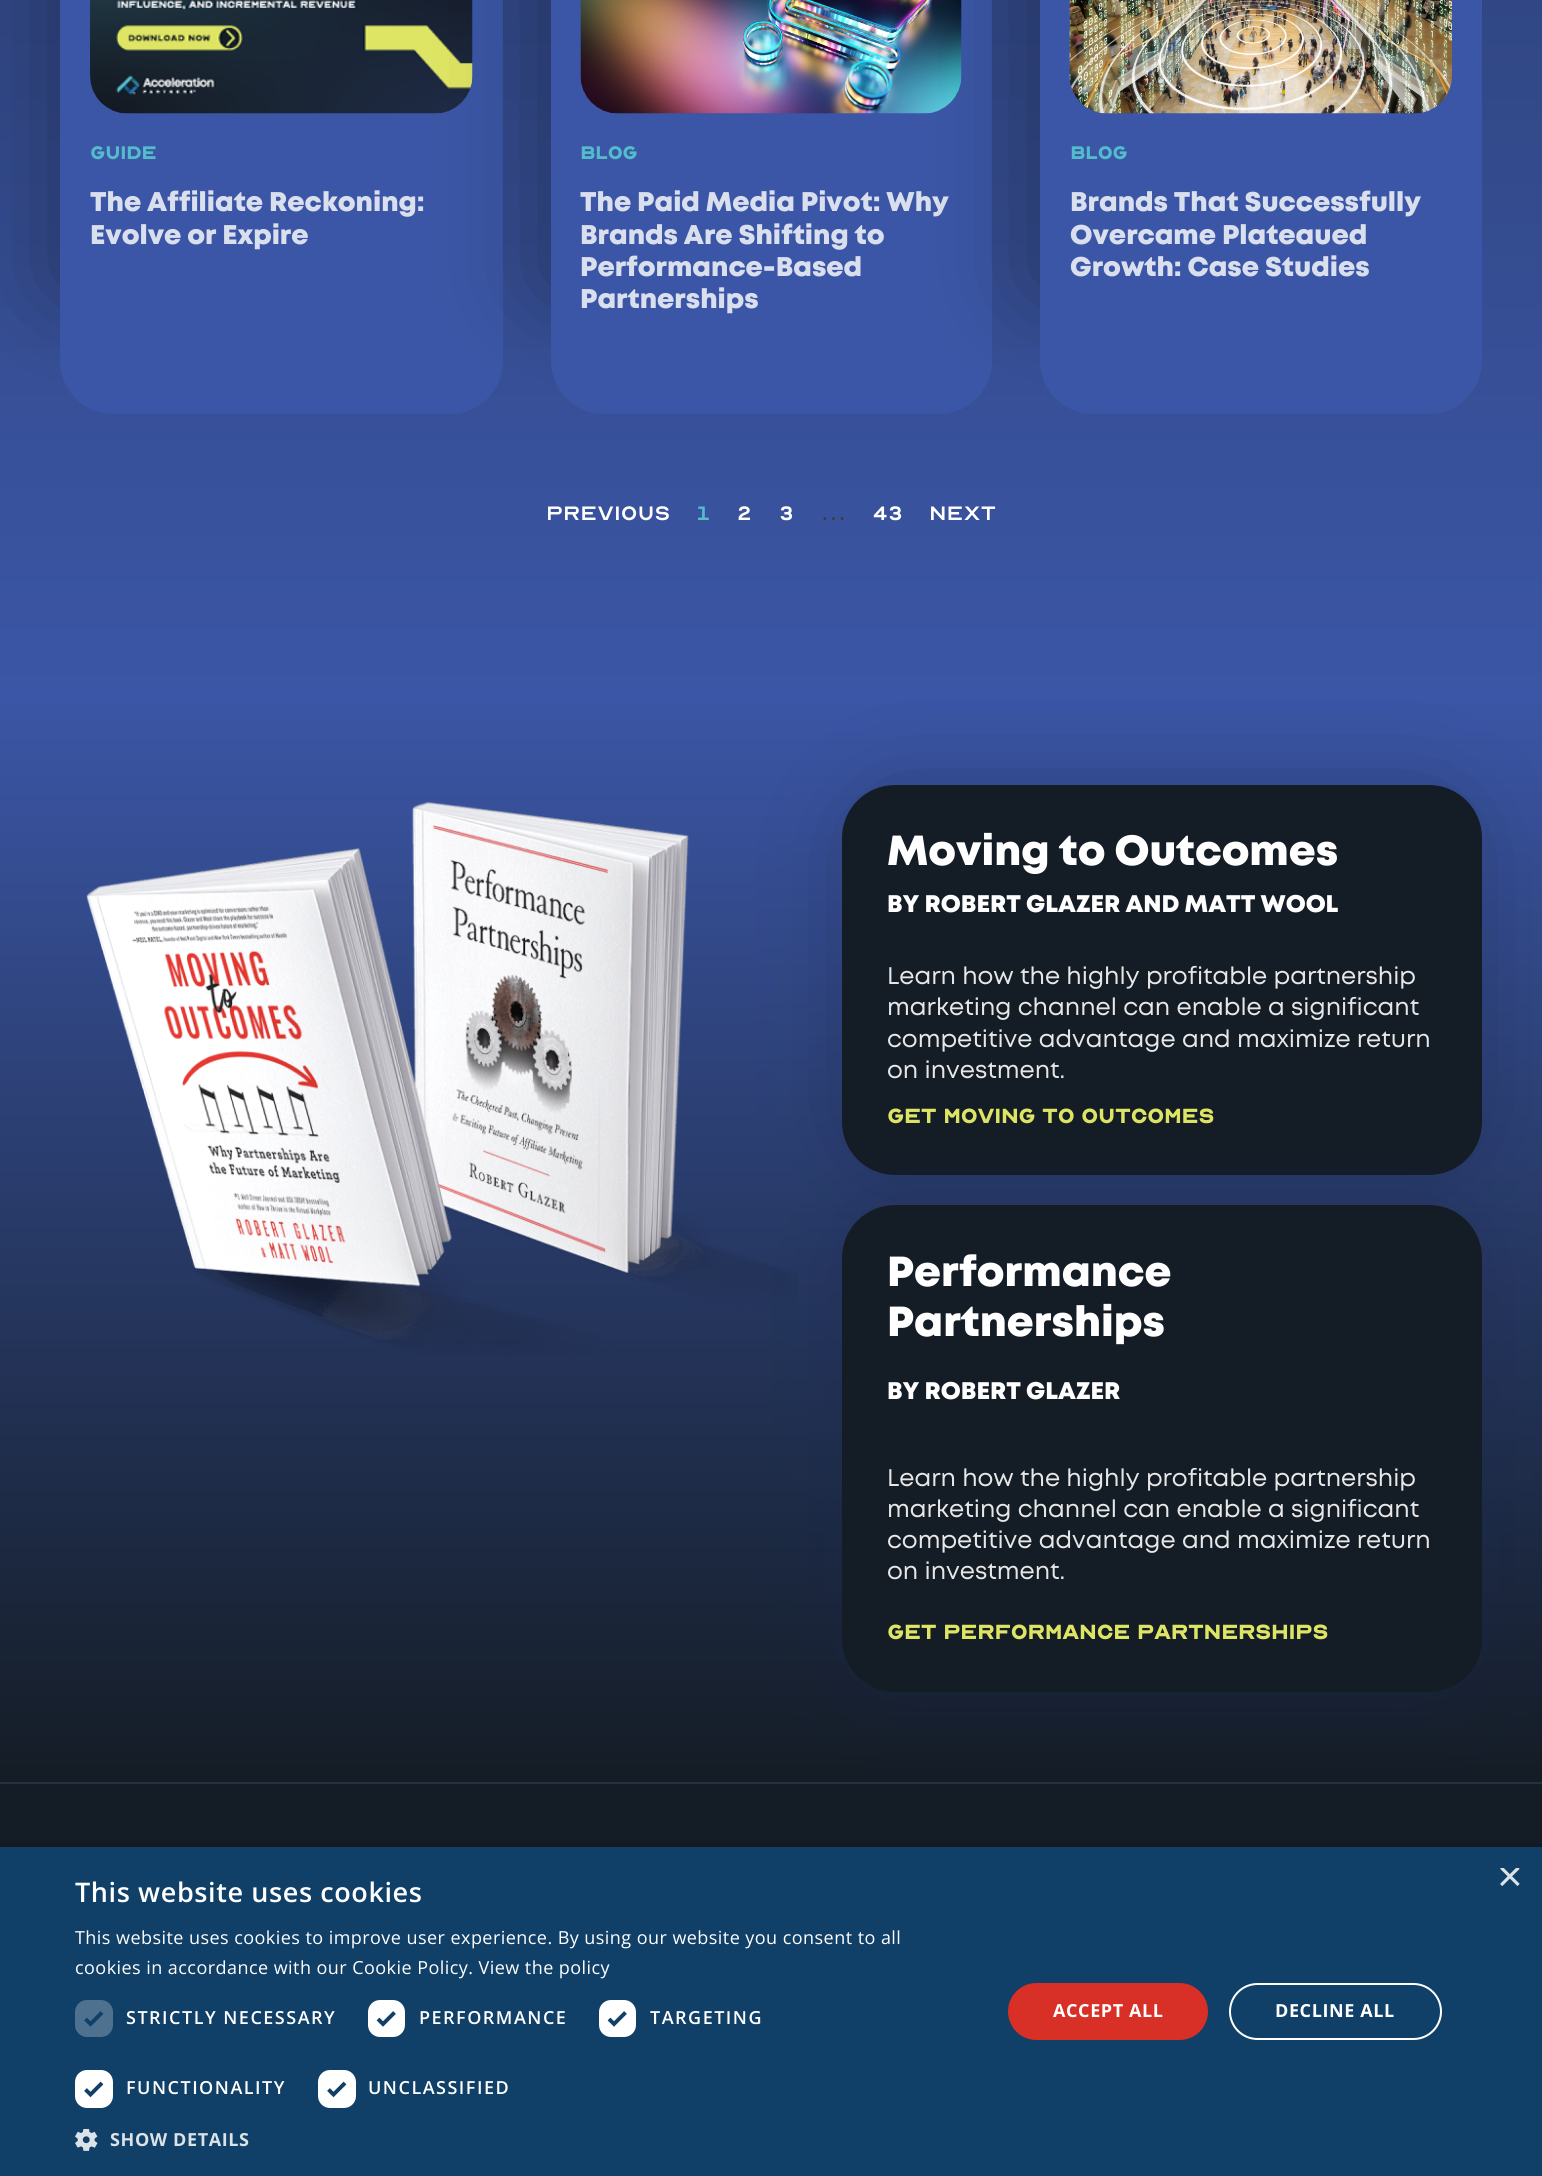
#include <cairo.h>
#include <math.h>
#include <stddef.h>


static void set_color(cairo_t *cr, unsigned color) {
    cairo_set_source_rgb(cr, (color >> 16) / 255.0, (color >> 8 & 255) / 255.0, (color & 255) / 255.0);
}

static void draw_text(cairo_t *cr, double x, double y, const char *s, const char *family, double size, int italic, int bold, unsigned color) {
    cairo_select_font_face(cr, family, italic ? CAIRO_FONT_SLANT_ITALIC : CAIRO_FONT_SLANT_NORMAL,
        bold ? CAIRO_FONT_WEIGHT_BOLD : CAIRO_FONT_WEIGHT_NORMAL);
    cairo_set_font_size(cr, size);
    set_color(cr, color);
    cairo_move_to(cr, x, y);
    cairo_show_text(cr, s);
}

static void draw_spaced(cairo_t *cr, double x, double y, const char *s, double letter, double word) {
    cairo_move_to(cr, x, y);
    while (*s) {
        char ch[5] = {0};
        int n = 0;
        do ch[n++] = *s++; while ((*s & 0xC0) == 0x80);
        cairo_show_text(cr, ch);
        cairo_rel_move_to(cr, letter + word * (*ch == ' '), 0);
    }
}

static void fill_rect(cairo_t *cr, double x, double y, double w, double h, unsigned color) {
    set_color(cr, color);
    cairo_rectangle(cr, x, y, w, h);
    cairo_fill(cr);
}

static void rounded_rect(cairo_t *cr, double x, double y, double w, double h, double r) {
    cairo_new_sub_path(cr);
    cairo_arc(cr, x + w - r, y + h - r, r, 0, M_PI / 2);
    cairo_arc(cr, x + r, y + h - r, r, M_PI / 2, M_PI);
    cairo_arc(cr, x + r, y + r, r, M_PI, 1.5 * M_PI);
    cairo_arc(cr, x + w - r, y + r, r, 1.5 * M_PI, 2 * M_PI);
    cairo_close_path(cr);
}

static void draw_shadow(cairo_t *cr, double x, double y, double w, double h, double r, double blur, double alpha) {
    cairo_push_group_with_content(cr, CAIRO_CONTENT_ALPHA);
    cairo_set_operator(cr, CAIRO_OPERATOR_SOURCE);
    for (int i = 15; i >= -15 && fmin(w, h) + blur * i / 3 > 0; i -= 2) {
        double e = blur * i / 6;
        cairo_set_source_rgba(cr, 0, 0, 0, alpha * erfc((i - 1) / 8.5) / 2);
        rounded_rect(cr, x - e, y - e, w + 2 * e, h + 2 * e, fmax(0, fmin(r + e + blur * .6, fmin(w, h) / 2 + e)));
        cairo_fill(cr);
    }
    cairo_pattern_t *soft = cairo_pop_group(cr);
    cairo_mask(cr, soft);
    cairo_pattern_destroy(soft);
}

static void draw_image(cairo_t *cr, const char *path, double x, double y, double w, double h) {
    cairo_surface_t *image = cairo_image_surface_create_from_png(path);
    cairo_save(cr);
    cairo_set_source_surface(cr, image, x, y);
    cairo_rectangle(cr, x, y, w, h);
    cairo_fill(cr);
    cairo_restore(cr);
    cairo_surface_destroy(image);
}

int main(void) {
    cairo_surface_t *surface = cairo_image_surface_create(CAIRO_FORMAT_RGB24, 1542, 2176);
    cairo_t *cr = cairo_create(surface);
    cairo_font_options_t *options = cairo_font_options_create();
    cairo_font_options_set_hint_metrics(options, CAIRO_HINT_METRICS_OFF);
    cairo_font_options_set_hint_style(options, CAIRO_HINT_STYLE_NONE);
    cairo_set_font_options(cr, options);
    cairo_set_miter_limit(cr, 4);
    cairo_pattern_t *gradient;
    set_color(cr, 0xFFFFFF);
    cairo_paint(cr);
    gradient = cairo_pattern_create_linear(771, -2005, 771, 695);
    cairo_pattern_add_color_stop_rgba(gradient, 0, 0.078, 0.11, 0.145, 1);
    cairo_pattern_add_color_stop_rgba(gradient, 1, 0.231, 0.337, 0.651, 1);
    cairo_set_source(cr, gradient);
    cairo_pattern_destroy(gradient);
    cairo_rectangle(cr, 0, 0, 1542, 695);
    cairo_fill(cr);
    set_color(cr, 0x000000);
    draw_shadow(cr, 56, -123, 313, 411, 0, 53, 0.33);
    set_color(cr, 0x3B56A6);
    rounded_rect(cr, 60, -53, 443, 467, 53);
    cairo_fill(cr);
    draw_image(cr, "assets/img1.png", 90, 0, 383, 114);
    draw_text(cr, 90, 159, "Guide", "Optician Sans", 24, 0, 1, 0x54BBCB);
    draw_text(cr, 90, 211, "The Affiliate Reckoning:", "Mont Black", 27, 0, 0, 0xDADFEE);
    draw_text(cr, 90, 244, "Evolve or Expire", "Mont Black", 27, 0, 0, 0xDADFEE);
    set_color(cr, 0x000000);
    draw_shadow(cr, 546, -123, 312, 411, 0, 53, 0.33);
    set_color(cr, 0x3B56A6);
    rounded_rect(cr, 551, -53, 441, 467, 53);
    cairo_fill(cr);
    draw_image(cr, "assets/img2.png", 580, 0, 382, 114);
    draw_text(cr, 580, 159, "Blog", "Optician Sans", 24, 0, 1, 0x54BBCB);
    draw_text(cr, 580, 211, "The Paid Media Pivot: Why", "Mont Black", 27, 0, 0, 0xDADFEE);
    draw_text(cr, 580, 244, "Brands Are Shifting to", "Mont Black", 27, 0, 0, 0xDADFEE);
    draw_text(cr, 580, 276, "Performance-Based", "Mont Black", 27, 0, 0, 0xDADFEE);
    draw_text(cr, 580, 308, "Partnerships", "Mont Black", 27, 0, 0, 0xDADFEE);
    set_color(cr, 0x000000);
    draw_shadow(cr, 1035, -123, 314, 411, 0, 53, 0.33);
    set_color(cr, 0x3B56A6);
    rounded_rect(cr, 1040, -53, 442, 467, 53);
    cairo_fill(cr);
    draw_image(cr, "assets/img3.png", 1069, 0, 383, 114);
    draw_text(cr, 1070, 159, "Blog", "Optician Sans", 24, 0, 1, 0x54BBCB);
    draw_text(cr, 1070, 211, "Brands That Successfully", "Mont Black", 27, 0, 0, 0xDADFEE);
    draw_text(cr, 1070, 244, "Overcame Plateaued", "Mont Black", 27, 0, 0, 0xDADFEE);
    draw_text(cr, 1070, 276, "Growth: Case Studies", "Mont Black", 27, 0, 0, 0xDADFEE);
    draw_text(cr, 546, 520, "Previous", "Optician Sans", 27, 0, 0, 0xFFFFFF);
    draw_text(cr, 696, 520, "1", "Optician Sans", 27, 0, 0, 0x54BBCB);
    draw_text(cr, 737, 520, "2", "Optician Sans", 27, 0, 0, 0xFFFFFF);
    draw_text(cr, 779, 520, "3", "Optician Sans", 27, 0, 0, 0xFFFFFF);
    draw_text(cr, 820, 520, "…", "Liberation Sans", 27, 0, 0, 0x3F3E3D);
    draw_text(cr, 873, 520, "43", "Optician Sans", 27, 0, 0, 0xFFFFFF);
    draw_text(cr, 929, 520, "Next", "Optician Sans", 27, 0, 0, 0xFFFFFF);
    gradient = cairo_pattern_create_linear(771, 694, 771, 1782);
    cairo_pattern_add_color_stop_rgba(gradient, 0, 0.231, 0.337, 0.651, 1);
    cairo_pattern_add_color_stop_rgba(gradient, 1, 0.078, 0.11, 0.145, 1);
    cairo_set_source(cr, gradient);
    cairo_pattern_destroy(gradient);
    cairo_rectangle(cr, 0, 695, 1542, 1087);
    cairo_fill(cr);
    draw_image(cr, "assets/img4.png", 86, 801, 712, 554);
    set_color(cr, 0x18254B);
    draw_shadow(cr, 887, 830, 550, 300, 8, 52.5, 1);
    set_color(cr, 0x141C25);
    rounded_rect(cr, 842, 785, 640, 390, 53);
    cairo_fill(cr);
    draw_text(cr, 887, 865, "Moving to Outcomes", "Mont Black", 42, 0, 0, 0xFFFFFF);
    draw_text(cr, 887, 912, "BY ROBERT GLAZER AND MATT WOOL", "Mont Black", 24, 0, 0, 0xFFFFFF);
    draw_text(cr, 887, 984, "Learn how the highly profitable partnership", "Mont", 24, 0, 0, 0xE7E7E7);
    draw_text(cr, 887, 1015, "marketing channel can enable a significant", "Mont", 24, 0, 0, 0xE7E7E7);
    draw_text(cr, 887, 1047, "competitive advantage and maximize return", "Mont", 24, 0, 0, 0xE7E7E7);
    draw_text(cr, 887, 1078, "on investment.", "Mont", 24, 0, 0, 0xE7E7E7);
    draw_text(cr, 887, 1123, "Get Moving to Outcomes", "Optician Sans", 27, 0, 1, 0xDEE463);
    set_color(cr, 0x18254B);
    draw_shadow(cr, 887, 1250, 550, 397, 8, 52.5, 1);
    set_color(cr, 0x141C25);
    rounded_rect(cr, 842, 1205, 640, 487, 53);
    cairo_fill(cr);
    draw_text(cr, 887, 1286, "Performance", "Mont Black", 42, 0, 0, 0xFFFFFF);
    draw_text(cr, 887, 1336, "Partnerships", "Mont Black", 42, 0, 0, 0xFFFFFF);
    draw_text(cr, 887, 1399, "BY ROBERT GLAZER", "Mont Black", 24, 0, 0, 0xFFFFFF);
    draw_text(cr, 887, 1486, "Learn how the highly profitable partnership", "Mont", 24, 0, 0, 0xE7E7E7);
    draw_text(cr, 887, 1517, "marketing channel can enable a significant", "Mont", 24, 0, 0, 0xE7E7E7);
    draw_text(cr, 887, 1548, "competitive advantage and maximize return", "Mont", 24, 0, 0, 0xE7E7E7);
    draw_text(cr, 887, 1579, "on investment.", "Mont", 24, 0, 0, 0xE7E7E7);
    draw_text(cr, 887, 1639, "Get Performance Partnerships", "Optician Sans", 27, 0, 1, 0xDEE463);
    fill_rect(cr, 0, 1784, 1542, 63, 0x141C25);
    fill_rect(cr, 0, 1782, 1542, 2, 0x243141);
    set_color(cr, 0x000000);
    draw_shadow(cr, 2, 1850, 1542, 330, 0, 6, 0.35);
    fill_rect(cr, 0, 1847, 1542, 329, 0x103F67);
    cairo_save(cr);
    cairo_rectangle(cr, 1497, 1868, 23, 22);
    cairo_clip(cr);
    draw_text(cr, 1497, 1891, "×", "Liberation Sans", 44, 0, 0, 0xDBE2E8);
    cairo_restore(cr);
    cairo_select_font_face(cr, "Open Sans SemiBold", CAIRO_FONT_SLANT_NORMAL, CAIRO_FONT_WEIGHT_NORMAL);
    set_color(cr, 0xFFFFFF);
    draw_spaced(cr, 75, 1902, "This website uses cookies", 0.6, 0);
    cairo_select_font_face(cr, "Open Sans", CAIRO_FONT_SLANT_NORMAL, CAIRO_FONT_WEIGHT_NORMAL);
    cairo_set_font_size(cr, 18);
    draw_spaced(cr, 75, 1944, "This website uses cookies to improve user experience. By using our website you consent to all", 0.45, 0);
    draw_spaced(cr, 75, 1974, "cookies in accordance with our Cookie Policy. View the policy", 0.45, 0);
    set_color(cr, 0x4E718F);
    rounded_rect(cr, 75, 2000, 38, 37, 12);
    cairo_fill(cr);
    cairo_new_path(cr);
    cairo_move_to(cr, 85.5, 2019);
    cairo_line_to(cr, 90.5, 2024);
    cairo_line_to(cr, 102, 2012.5);
    set_color(cr, 0x103F67);
    cairo_set_line_width(cr, 3.9);
    cairo_stroke(cr);
    cairo_select_font_face(cr, "Open Sans SemiBold", CAIRO_FONT_SLANT_NORMAL, CAIRO_FONT_WEIGHT_NORMAL);
    set_color(cr, 0xFFFFFF);
    draw_spaced(cr, 126, 2024, "STRICTLY NECESSARY", 1.5, 0);
    rounded_rect(cr, 369.5, 2001.5, 34, 34, 10.5);
    cairo_fill_preserve(cr);
    cairo_set_line_width(cr, 3);
    cairo_stroke(cr);
    cairo_new_path(cr);
    cairo_move_to(cr, 378, 2019);
    cairo_line_to(cr, 383, 2024);
    cairo_line_to(cr, 394.5, 2012.5);
    set_color(cr, 0x103F67);
    cairo_set_line_width(cr, 3.9);
    cairo_stroke(cr);
    set_color(cr, 0xFFFFFF);
    draw_spaced(cr, 419, 2024, "PERFORMANCE", 1.5, 0);
    rounded_rect(cr, 600.5, 2001.5, 34, 34, 10.5);
    cairo_fill_preserve(cr);
    cairo_set_line_width(cr, 3);
    cairo_stroke(cr);
    cairo_new_path(cr);
    cairo_move_to(cr, 609, 2019);
    cairo_line_to(cr, 614, 2024);
    cairo_line_to(cr, 625.5, 2012.5);
    set_color(cr, 0x103F67);
    cairo_set_line_width(cr, 3.9);
    cairo_stroke(cr);
    set_color(cr, 0xFFFFFF);
    draw_spaced(cr, 650, 2024, "TARGETING", 1.5, 0);
    rounded_rect(cr, 76.5, 2071.5, 35, 35, 10.5);
    cairo_fill_preserve(cr);
    cairo_set_line_width(cr, 3);
    cairo_stroke(cr);
    cairo_new_path(cr);
    cairo_move_to(cr, 85.5, 2089.5);
    cairo_line_to(cr, 90.5, 2094.5);
    cairo_line_to(cr, 102, 2083);
    set_color(cr, 0x103F67);
    cairo_set_line_width(cr, 3.9);
    cairo_stroke(cr);
    set_color(cr, 0xFFFFFF);
    draw_spaced(cr, 126, 2094, "FUNCTIONALITY", 1.5, 0);
    rounded_rect(cr, 319.5, 2071.5, 35, 35, 10.5);
    cairo_fill_preserve(cr);
    cairo_set_line_width(cr, 3);
    cairo_stroke(cr);
    cairo_new_path(cr);
    cairo_move_to(cr, 328.5, 2089.5);
    cairo_line_to(cr, 333.5, 2094.5);
    cairo_line_to(cr, 345, 2083);
    set_color(cr, 0x103F67);
    cairo_set_line_width(cr, 3.9);
    cairo_stroke(cr);
    set_color(cr, 0xFFFFFF);
    draw_spaced(cr, 368, 2094, "UNCLASSIFIED", 1.5, 0);
    draw_image(cr, "assets/img5.png", 75, 2129, 23, 22);
    cairo_select_font_face(cr, "Open Sans", CAIRO_FONT_SLANT_NORMAL, CAIRO_FONT_WEIGHT_BOLD);
    set_color(cr, 0xDBE2E8);
    draw_spaced(cr, 110, 2146, "SHOW DETAILS", 0.6, 0);
    set_color(cr, 0xD82F27);
    rounded_rect(cr, 1008, 1983, 200, 57, 28.5);
    cairo_fill(cr);
    set_color(cr, 0xFFFFFF);
    draw_spaced(cr, 1053, 2017, "ACCEPT ALL", 0.6, 0);
    rounded_rect(cr, 1230, 1984, 211, 55, 27.5);
    cairo_set_line_width(cr, 2);
    cairo_stroke(cr);
    draw_spaced(cr, 1275, 2017, "DECLINE ALL", 0.6, 0);
    cairo_surface_write_to_png(surface, "output.png");
    cairo_font_options_destroy(options);
    cairo_destroy(cr);
    cairo_surface_destroy(surface);
    return 0;
}
